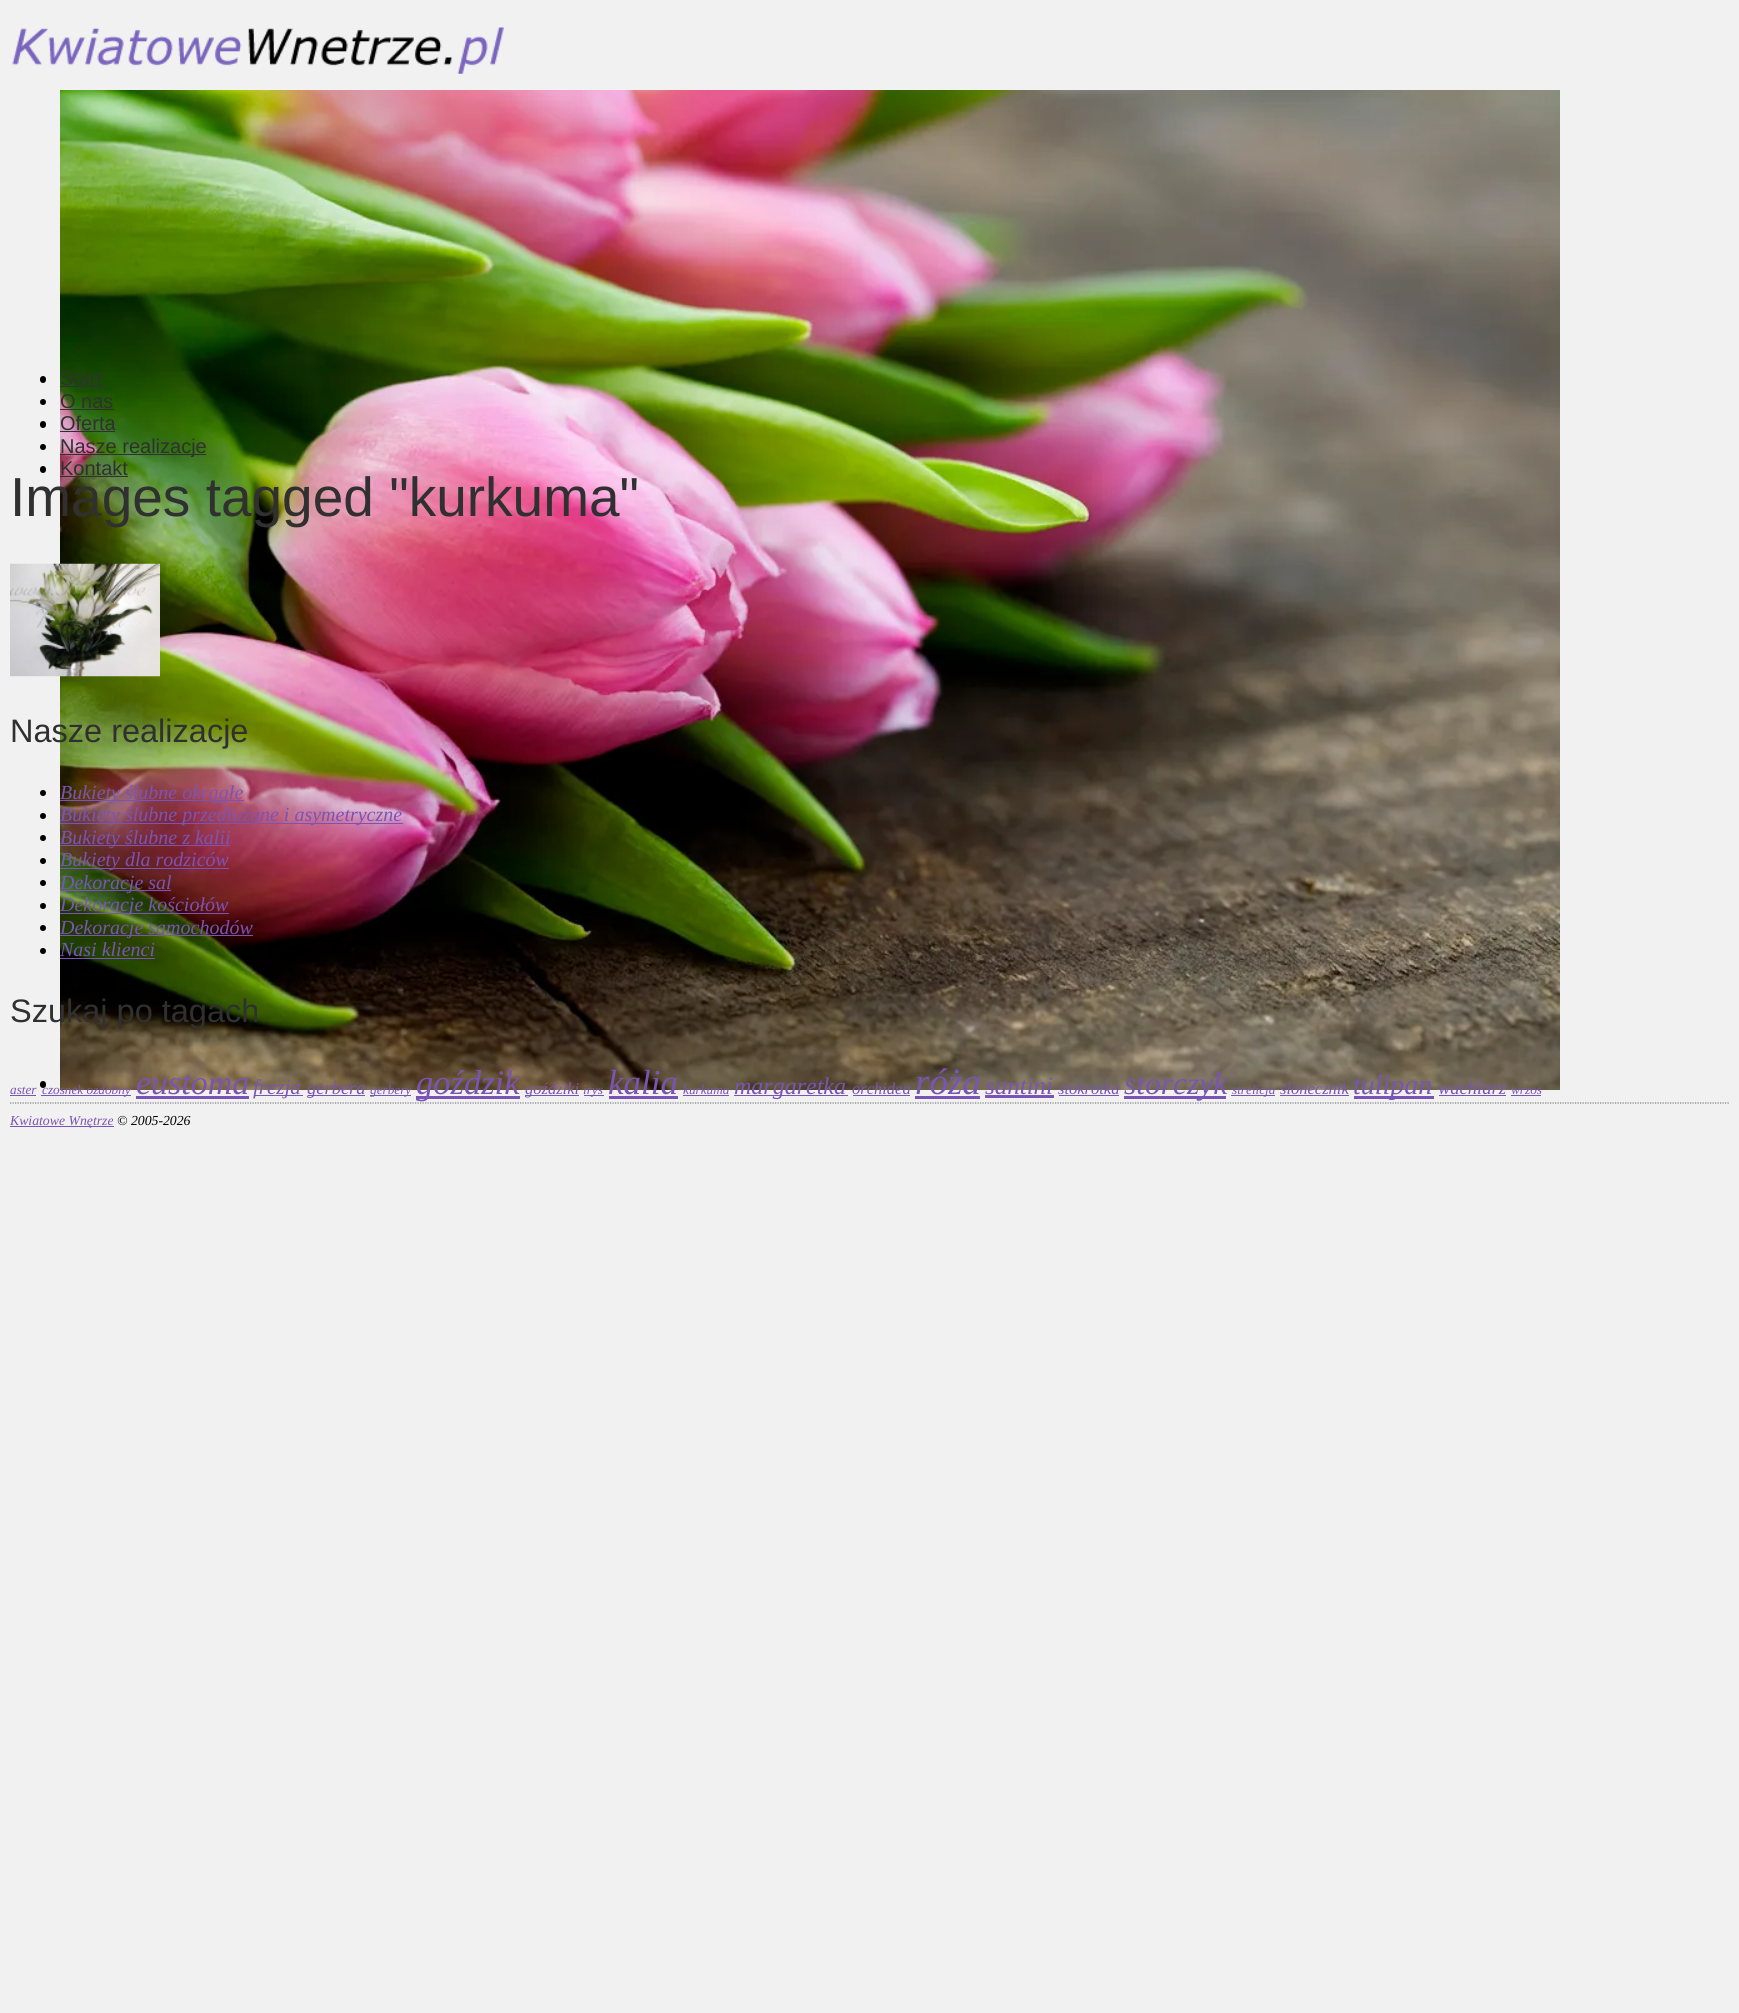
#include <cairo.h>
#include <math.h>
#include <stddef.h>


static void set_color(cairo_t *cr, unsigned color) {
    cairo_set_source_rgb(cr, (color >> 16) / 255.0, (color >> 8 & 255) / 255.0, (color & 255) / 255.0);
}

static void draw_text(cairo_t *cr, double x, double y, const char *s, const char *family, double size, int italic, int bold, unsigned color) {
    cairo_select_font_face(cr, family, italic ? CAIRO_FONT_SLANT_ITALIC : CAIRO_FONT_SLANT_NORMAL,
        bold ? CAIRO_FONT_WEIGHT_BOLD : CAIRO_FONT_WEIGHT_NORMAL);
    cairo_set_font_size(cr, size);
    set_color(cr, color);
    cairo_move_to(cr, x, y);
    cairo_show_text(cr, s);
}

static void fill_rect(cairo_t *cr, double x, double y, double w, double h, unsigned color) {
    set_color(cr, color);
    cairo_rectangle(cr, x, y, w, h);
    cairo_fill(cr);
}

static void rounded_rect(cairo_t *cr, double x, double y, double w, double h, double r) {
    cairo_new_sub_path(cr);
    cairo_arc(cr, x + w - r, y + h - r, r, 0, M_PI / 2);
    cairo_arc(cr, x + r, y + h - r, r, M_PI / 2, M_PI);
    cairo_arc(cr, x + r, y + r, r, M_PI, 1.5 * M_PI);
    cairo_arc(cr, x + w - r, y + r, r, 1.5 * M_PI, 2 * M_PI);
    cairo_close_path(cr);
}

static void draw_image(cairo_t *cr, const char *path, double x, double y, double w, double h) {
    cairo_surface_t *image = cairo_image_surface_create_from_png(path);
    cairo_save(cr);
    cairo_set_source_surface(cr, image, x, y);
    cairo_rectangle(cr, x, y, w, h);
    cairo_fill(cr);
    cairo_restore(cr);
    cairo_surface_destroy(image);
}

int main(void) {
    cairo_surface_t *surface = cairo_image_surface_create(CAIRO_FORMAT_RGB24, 1739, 2013);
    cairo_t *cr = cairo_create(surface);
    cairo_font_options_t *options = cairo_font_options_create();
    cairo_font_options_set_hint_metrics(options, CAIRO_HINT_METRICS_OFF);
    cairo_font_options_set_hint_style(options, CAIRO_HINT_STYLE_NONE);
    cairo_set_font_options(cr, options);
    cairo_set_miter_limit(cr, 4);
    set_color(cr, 0xF1F1F1);
    cairo_paint(cr);
    draw_image(cr, "assets/img1.png", 12, 27, 492, 47);
    set_color(cr, 0x000000);
    rounded_rect(cr, 40, 1081, 6, 7, 3);
    cairo_fill(cr);
    draw_image(cr, "assets/img2.png", 60, 90, 1500, 1000);
    rounded_rect(cr, 40, 376, 6, 7, 3);
    cairo_fill(cr);
    draw_text(cr, 60, 385, "Start", "Liberation Sans", 20, 0, 0, 0x303030);
    fill_rect(cr, 60, 386, 43, 1, 0x303030);
    set_color(cr, 0x000000);
    cairo_new_path(cr);
    cairo_arc(cr, 43, 402, 3, 0, 2 * M_PI);
    cairo_fill(cr);
    draw_text(cr, 60, 408, "O nas", "Liberation Sans", 20, 0, 0, 0x303030);
    fill_rect(cr, 60, 409, 54, 1, 0x303030);
    set_color(cr, 0x000000);
    rounded_rect(cr, 40, 421, 6, 7, 3);
    cairo_fill(cr);
    draw_text(cr, 60, 430, "Oferta", "Liberation Sans", 20, 0, 0, 0x303030);
    fill_rect(cr, 60, 431, 55, 1, 0x303030);
    set_color(cr, 0x000000);
    cairo_new_path(cr);
    cairo_arc(cr, 43, 447, 3, 0, 2 * M_PI);
    cairo_fill(cr);
    fill_rect(cr, 60, 454, 146, 1, 0x303030);
    draw_text(cr, 60, 453, "Nasze realizacje", "Liberation Sans", 20, 0, 0, 0x303030);
    set_color(cr, 0x000000);
    rounded_rect(cr, 40, 466, 6, 7, 3);
    cairo_fill(cr);
    draw_text(cr, 60, 475, "Kontakt", "Liberation Sans", 20, 0, 0, 0x303030);
    fill_rect(cr, 60, 476, 68, 1, 0x303030);
    draw_text(cr, 10, 516, "Images tagged \"kurkuma\"", "Liberation Sans", 55, 0, 0, 0x303030);
    draw_image(cr, "assets/img3.png", 10, 563, 150, 114);
    draw_text(cr, 10, 742, "Nasze realizacje", "Liberation Sans", 32.5, 0, 0, 0x303030);
    set_color(cr, 0x000000);
    cairo_new_path(cr);
    cairo_arc(cr, 43, 793, 3, 0, 2 * M_PI);
    cairo_fill(cr);
    fill_rect(cr, 60, 800, 184, 1, 0x7A54B4);
    draw_text(cr, 60, 799, "Bukiety ślubne okrągłe", "Liberation Serif", 20, 1, 0, 0x7A54B4);
    set_color(cr, 0x000000);
    cairo_new_path(cr);
    cairo_arc(cr, 43, 816, 3, 0, 2 * M_PI);
    cairo_fill(cr);
    fill_rect(cr, 60, 823, 343, 1, 0x7A54B4);
    draw_text(cr, 60, 821, "Bukiety ślubne przedłużane i asymetryczne", "Liberation Serif", 20, 1, 0, 0x7A54B4);
    set_color(cr, 0x000000);
    cairo_new_path(cr);
    cairo_arc(cr, 43, 838, 3, 0, 2 * M_PI);
    cairo_fill(cr);
    fill_rect(cr, 60, 845, 170, 1, 0x7A54B4);
    draw_text(cr, 60, 844, "Bukiety ślubne z kalii", "Liberation Serif", 20, 1, 0, 0x7A54B4);
    set_color(cr, 0x000000);
    cairo_new_path(cr);
    cairo_arc(cr, 43, 861, 3, 0, 2 * M_PI);
    cairo_fill(cr);
    fill_rect(cr, 60, 868, 169, 1, 0x7A54B4);
    draw_text(cr, 60, 866, "Bukiety dla rodziców", "Liberation Serif", 20, 1, 0, 0x7A54B4);
    set_color(cr, 0x000000);
    cairo_new_path(cr);
    cairo_arc(cr, 43, 883, 3, 0, 2 * M_PI);
    cairo_fill(cr);
    fill_rect(cr, 60, 890, 111, 1, 0x7A54B4);
    draw_text(cr, 60, 889, "Dekoracje sal", "Liberation Serif", 20, 1, 0, 0x7A54B4);
    set_color(cr, 0x000000);
    cairo_new_path(cr);
    cairo_arc(cr, 43, 906, 3, 0, 2 * M_PI);
    cairo_fill(cr);
    fill_rect(cr, 60, 913, 169, 1, 0x7A54B4);
    draw_text(cr, 60, 911, "Dekoracje kościołów", "Liberation Serif", 20, 1, 0, 0x7A54B4);
    set_color(cr, 0x000000);
    cairo_new_path(cr);
    cairo_arc(cr, 43, 928, 3, 0, 2 * M_PI);
    cairo_fill(cr);
    fill_rect(cr, 60, 935, 193, 1, 0x7A54B4);
    draw_text(cr, 60, 934, "Dekoracje samochodów", "Liberation Serif", 20, 1, 0, 0x7A54B4);
    set_color(cr, 0x000000);
    cairo_new_path(cr);
    cairo_arc(cr, 43, 951, 3, 0, 2 * M_PI);
    cairo_fill(cr);
    draw_text(cr, 60, 956, "Nasi klienci", "Liberation Serif", 20, 1, 0, 0x7A54B4);
    fill_rect(cr, 60, 958, 95, 1, 0x7A54B4);
    draw_text(cr, 10, 1022, "Szukaj po tagach", "Liberation Sans", 32.5, 0, 0, 0x303030);
    draw_text(cr, 10, 1094, "aster", "Liberation Serif", 13.25, 1, 0, 0x7A54B4);
    fill_rect(cr, 10, 1095, 26, 1, 0x7A54B4);
    fill_rect(cr, 41, 1095, 90, 1, 0x7A54B4);
    draw_text(cr, 42, 1094, "czosnek ozdobny", "Liberation Serif", 13.25, 1, 0, 0x7A54B4);
    draw_text(cr, 136, 1094, "eustoma", "Liberation Serif", 34, 1, 0, 0x7A54B4);
    fill_rect(cr, 136, 1096, 113, 3, 0x7A54B4);
    fill_rect(cr, 254, 1095, 49, 1, 0x7A54B4);
    draw_text(cr, 253, 1094, "frezja", "Liberation Serif", 21, 1, 0, 0x7A54B4);
    fill_rect(cr, 308, 1095, 57, 1, 0x7A54B4);
    draw_text(cr, 307, 1094, "gerbera", "Liberation Serif", 18.5, 1, 0, 0x7A54B4);
    fill_rect(cr, 370, 1095, 41, 1, 0x7A54B4);
    draw_text(cr, 370, 1094, "gerbery", "Liberation Serif", 13.25, 1, 0, 0x7A54B4);
    fill_rect(cr, 416, 1096, 104, 3, 0x7A54B4);
    draw_text(cr, 416, 1094, "goździk", "Liberation Serif", 34.5, 1, 0, 0x7A54B4);
    fill_rect(cr, 525, 1095, 54, 1, 0x7A54B4);
    draw_text(cr, 525, 1094, "goździki", "Liberation Serif", 16.5, 1, 0, 0x7A54B4);
    fill_rect(cr, 584, 1095, 20, 1, 0x7A54B4);
    draw_text(cr, 583, 1094, "irys", "Liberation Serif", 13.25, 1, 0, 0x7A54B4);
    draw_text(cr, 608, 1094, "kalia", "Liberation Serif", 35, 1, 0, 0x7A54B4);
    fill_rect(cr, 609, 1096, 69, 3, 0x7A54B4);
    draw_text(cr, 683, 1094, "kurkuma", "Liberation Serif", 13.25, 1, 0, 0x7A54B4);
    fill_rect(cr, 683, 1095, 46, 1, 0x7A54B4);
    fill_rect(cr, 734, 1095, 114, 1, 0x7A54B4);
    draw_text(cr, 734, 1094, "margaretka", "Liberation Serif", 24, 1, 0, 0x7A54B4);
    draw_text(cr, 852, 1094, "orchidea", "Liberation Serif", 16.5, 1, 0, 0x7A54B4);
    fill_rect(cr, 853, 1095, 57, 1, 0x7A54B4);
    draw_text(cr, 915, 1094, "róża", "Liberation Serif", 37, 1, 0, 0x7A54B4);
    fill_rect(cr, 915, 1096, 65, 3, 0x7A54B4);
    draw_text(cr, 985, 1094, "santini", "Liberation Serif", 25, 1, 0, 0x7A54B4);
    fill_rect(cr, 985, 1095, 69, 3, 0x7A54B4);
    draw_text(cr, 1058, 1094, "stokrotka", "Liberation Serif", 16.5, 1, 0, 0x7A54B4);
    fill_rect(cr, 1059, 1095, 60, 1, 0x7A54B4);
    fill_rect(cr, 1124, 1096, 102, 3, 0x7A54B4);
    draw_text(cr, 1124, 1094, "storczyk", "Liberation Serif", 31.5, 1, 0, 0x7A54B4);
    fill_rect(cr, 1231, 1095, 44, 1, 0x7A54B4);
    draw_text(cr, 1232, 1094, "strelicja", "Liberation Serif", 13.25, 1, 0, 0x7A54B4);
    draw_text(cr, 1280, 1094, "słonecznik", "Liberation Serif", 16.5, 1, 0, 0x7A54B4);
    fill_rect(cr, 1280, 1095, 69, 1, 0x7A54B4);
    fill_rect(cr, 1354, 1096, 80, 3, 0x7A54B4);
    draw_text(cr, 1353, 1094, "tulipan", "Liberation Serif", 28, 1, 0, 0x7A54B4);
    draw_text(cr, 1438, 1094, "wachlarz", "Liberation Serif", 18.5, 1, 0, 0x7A54B4);
    fill_rect(cr, 1439, 1095, 67, 1, 0x7A54B4);
    draw_text(cr, 1511, 1094, "wrzos", "Liberation Serif", 13.25, 1, 0, 0x7A54B4);
    fill_rect(cr, 1511, 1095, 30, 1, 0x7A54B4);
    cairo_new_path(cr);
    cairo_move_to(cr, 10, 1103);
    cairo_line_to(cr, 1730, 1103);
    set_color(cr, 0x808080);
    cairo_set_line_width(cr, 1.2);
    cairo_set_dash(cr, (double[]){1.25, 1.25}, 2, 0);
    cairo_stroke(cr);
    fill_rect(cr, 10, 1126, 104, 1, 0x7A54B4);
    draw_text(cr, 10, 1125, "Kwiatowe Wnętrze", "Liberation Serif", 13.75, 1, 0, 0x7A54B4);
    draw_text(cr, 117, 1125, "© 2005-2026", "Liberation Serif", 13.75, 1, 0, 0x000000);
    cairo_surface_write_to_png(surface, "output.png");
    cairo_font_options_destroy(options);
    cairo_destroy(cr);
    cairo_surface_destroy(surface);
    return 0;
}
